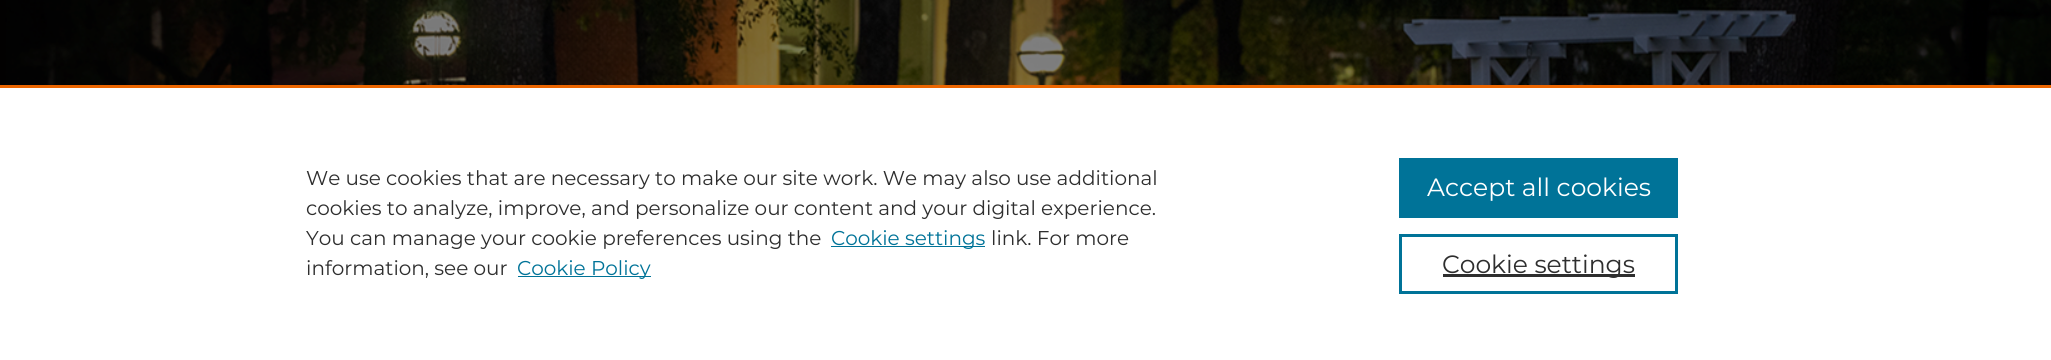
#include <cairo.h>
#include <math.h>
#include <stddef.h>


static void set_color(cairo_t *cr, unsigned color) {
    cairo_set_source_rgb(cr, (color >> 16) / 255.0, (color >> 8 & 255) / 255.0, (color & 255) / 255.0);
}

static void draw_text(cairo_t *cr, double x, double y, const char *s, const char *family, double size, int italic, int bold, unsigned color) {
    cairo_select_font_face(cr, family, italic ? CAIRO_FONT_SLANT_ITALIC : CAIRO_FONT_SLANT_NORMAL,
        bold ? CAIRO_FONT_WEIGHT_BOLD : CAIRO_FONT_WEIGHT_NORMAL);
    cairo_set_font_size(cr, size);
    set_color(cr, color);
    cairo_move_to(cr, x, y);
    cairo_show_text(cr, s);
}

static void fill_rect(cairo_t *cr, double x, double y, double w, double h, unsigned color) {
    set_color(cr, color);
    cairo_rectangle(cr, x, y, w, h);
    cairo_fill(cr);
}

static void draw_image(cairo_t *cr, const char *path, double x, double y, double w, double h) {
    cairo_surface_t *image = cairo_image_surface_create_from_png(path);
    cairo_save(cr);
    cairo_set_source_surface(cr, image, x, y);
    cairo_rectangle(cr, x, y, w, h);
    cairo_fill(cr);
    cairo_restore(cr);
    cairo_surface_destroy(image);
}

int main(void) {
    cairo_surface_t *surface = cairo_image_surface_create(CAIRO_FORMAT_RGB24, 2051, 360);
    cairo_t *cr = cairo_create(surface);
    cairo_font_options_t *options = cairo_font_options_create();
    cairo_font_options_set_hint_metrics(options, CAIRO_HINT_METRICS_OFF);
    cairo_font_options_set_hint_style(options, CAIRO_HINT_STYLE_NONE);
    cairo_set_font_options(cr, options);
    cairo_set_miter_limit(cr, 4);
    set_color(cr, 0xFFFFFF);
    cairo_paint(cr);
    draw_image(cr, "assets/img1.png", 0, 0, 2051, 85);
    fill_rect(cr, 0, 85, 2051, 3, 0xEB6500);
    draw_text(cr, 306, 185, "We use cookies that are necessary to make our site work. We may also use additional", "Montserrat", 20, 0, 0, 0x2E2E2E);
    draw_text(cr, 306, 215, "cookies to analyze, improve, and personalize our content and your digital experience.", "Montserrat", 20, 0, 0, 0x2E2E2E);
    draw_text(cr, 306, 245, "You can manage your cookie preferences using the", "Montserrat", 20, 0, 0, 0x2E2E2E);
    fill_rect(cr, 831, 246, 154, 1, 0x007398);
    draw_text(cr, 831, 245, "Cookie settings", "Montserrat", 20, 0, 0, 0x007398);
    draw_text(cr, 991, 245, "link. For more", "Montserrat", 20, 0, 0, 0x2E2E2E);
    draw_text(cr, 306, 275, "information, see our", "Montserrat", 20, 0, 0, 0x2E2E2E);
    fill_rect(cr, 518, 276, 133, 1, 0x007398);
    draw_text(cr, 517, 275, "Cookie Policy", "Montserrat", 20, 0, 0, 0x007398);
    fill_rect(cr, 1399, 158, 279, 60, 0x007398);
    draw_text(cr, 1427, 196, "Accept all cookies", "Montserrat", 25, 0, 0, 0xFFFFFF);
    cairo_rectangle(cr, 1400.5, 235.5, 276, 57);
    set_color(cr, 0x007398);
    cairo_set_line_width(cr, 3);
    cairo_stroke(cr);
    fill_rect(cr, 1443, 274, 192, 3, 0x2E2E2E);
    draw_text(cr, 1442, 273, "Cookie settings", "Montserrat", 25, 0, 0, 0x2E2E2E);
    cairo_surface_write_to_png(surface, "output.png");
    cairo_font_options_destroy(options);
    cairo_destroy(cr);
    cairo_surface_destroy(surface);
    return 0;
}
